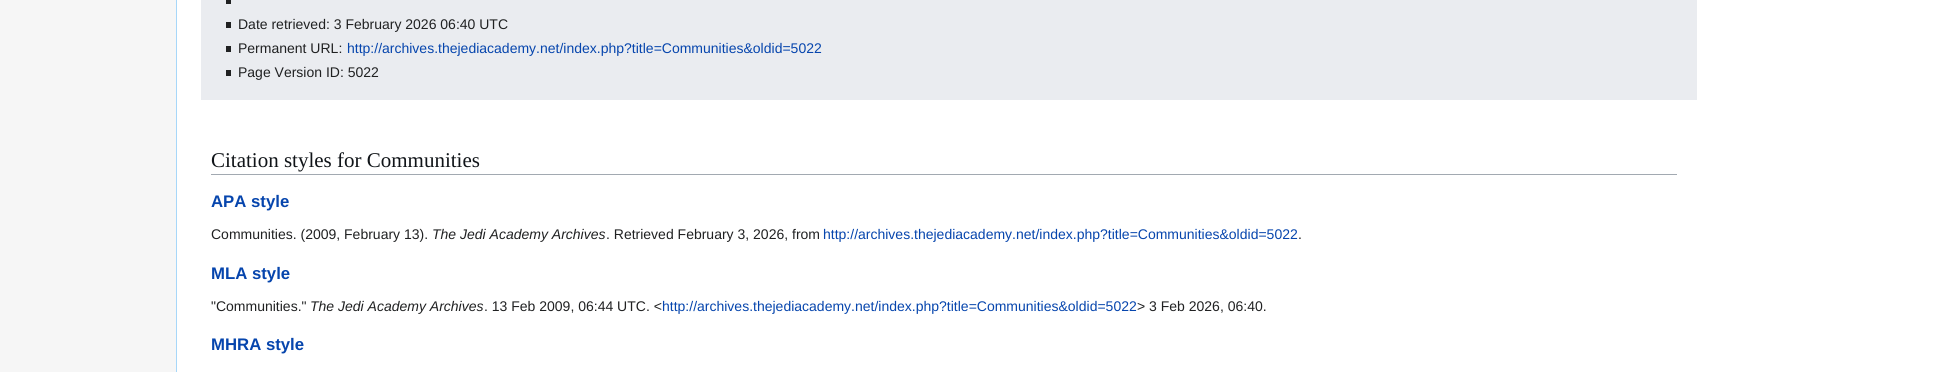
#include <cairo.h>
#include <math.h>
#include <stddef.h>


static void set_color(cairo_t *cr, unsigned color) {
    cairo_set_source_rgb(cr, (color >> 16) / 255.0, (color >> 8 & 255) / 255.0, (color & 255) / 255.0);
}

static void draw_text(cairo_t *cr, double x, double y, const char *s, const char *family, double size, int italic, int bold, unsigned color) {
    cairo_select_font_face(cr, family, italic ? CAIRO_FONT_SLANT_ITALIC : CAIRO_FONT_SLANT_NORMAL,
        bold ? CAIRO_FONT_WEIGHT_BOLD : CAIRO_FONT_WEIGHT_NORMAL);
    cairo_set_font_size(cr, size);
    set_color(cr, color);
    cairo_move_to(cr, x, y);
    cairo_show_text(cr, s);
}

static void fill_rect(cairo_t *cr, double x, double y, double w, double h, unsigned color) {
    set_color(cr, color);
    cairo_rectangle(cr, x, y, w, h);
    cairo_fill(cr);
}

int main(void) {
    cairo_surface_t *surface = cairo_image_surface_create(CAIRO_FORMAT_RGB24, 1950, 372);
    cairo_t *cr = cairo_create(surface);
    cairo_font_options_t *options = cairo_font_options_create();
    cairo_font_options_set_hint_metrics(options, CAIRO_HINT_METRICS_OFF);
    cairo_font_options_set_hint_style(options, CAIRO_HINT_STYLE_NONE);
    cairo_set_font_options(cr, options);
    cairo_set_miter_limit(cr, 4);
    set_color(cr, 0xF6F6F6);
    cairo_paint(cr);
    fill_rect(cr, 177, 0, 1773, 372, 0xFFFFFF);
    fill_rect(cr, 176, 0, 1, 372, 0xA7D7F9);
    fill_rect(cr, 201, 0, 1496, 100, 0xEAECF0);
    fill_rect(cr, 226, 0, 5, 4, 0x202122);
    fill_rect(cr, 226, 22, 5, 6, 0x202122);
    draw_text(cr, 238, 29, "Date retrieved: 3 February 2026 06:40 UTC", "Liberation Sans", 14, 0, 0, 0x202122);
    fill_rect(cr, 226, 46, 5, 6, 0x202122);
    draw_text(cr, 238, 53, "Permanent URL:", "Liberation Sans", 14, 0, 0, 0x202122);
    draw_text(cr, 347, 53, "http://archives.thejediacademy.net/index.php?title=Communities&oldid=5022", "Liberation Sans", 14, 0, 0, 0x0645AD);
    fill_rect(cr, 226, 70, 5, 6, 0x202122);
    draw_text(cr, 238, 77, "Page Version ID: 5022", "Liberation Sans", 14, 0, 0, 0x202122);
    fill_rect(cr, 211, 174, 1466, 1, 0xA2A9B1);
    draw_text(cr, 211, 167, "Citation styles for Communities", "Liberation Serif", 21, 0, 0, 0x101418);
    draw_text(cr, 211, 207, "APA style", "Liberation Sans", 16.75, 0, 1, 0x0645AD);
    draw_text(cr, 211, 239, "Communities. (2009, February 13).", "Liberation Sans", 14, 0, 0, 0x202122);
    draw_text(cr, 432, 239, "The Jedi Academy Archives", "Liberation Sans", 14, 1, 0, 0x202122);
    draw_text(cr, 606, 239, ". Retrieved February 3, 2026, from", "Liberation Sans", 14, 0, 0, 0x202122);
    draw_text(cr, 823, 239, "http://archives.thejediacademy.net/index.php?title=Communities&oldid=5022", "Liberation Sans", 14, 0, 0, 0x0645AD);
    draw_text(cr, 1298, 239, ".", "Liberation Sans", 14, 0, 0, 0x202122);
    draw_text(cr, 211, 279, "MLA style", "Liberation Sans", 16.75, 0, 1, 0x0645AD);
    draw_text(cr, 211, 311, "\"Communities.\"", "Liberation Sans", 14, 0, 0, 0x202122);
    draw_text(cr, 310, 311, "The Jedi Academy Archives", "Liberation Sans", 14, 1, 0, 0x202122);
    draw_text(cr, 484, 311, ". 13 Feb 2009, 06:44 UTC. <", "Liberation Sans", 14, 0, 0, 0x202122);
    draw_text(cr, 662, 311, "http://archives.thejediacademy.net/index.php?title=Communities&oldid=5022", "Liberation Sans", 14, 0, 0, 0x0645AD);
    draw_text(cr, 1137, 311, "> 3 Feb 2026, 06:40.", "Liberation Sans", 14, 0, 0, 0x202122);
    draw_text(cr, 211, 350, "MHRA style", "Liberation Sans", 16.75, 0, 1, 0x0645AD);
    cairo_surface_write_to_png(surface, "output.png");
    cairo_font_options_destroy(options);
    cairo_destroy(cr);
    cairo_surface_destroy(surface);
    return 0;
}
